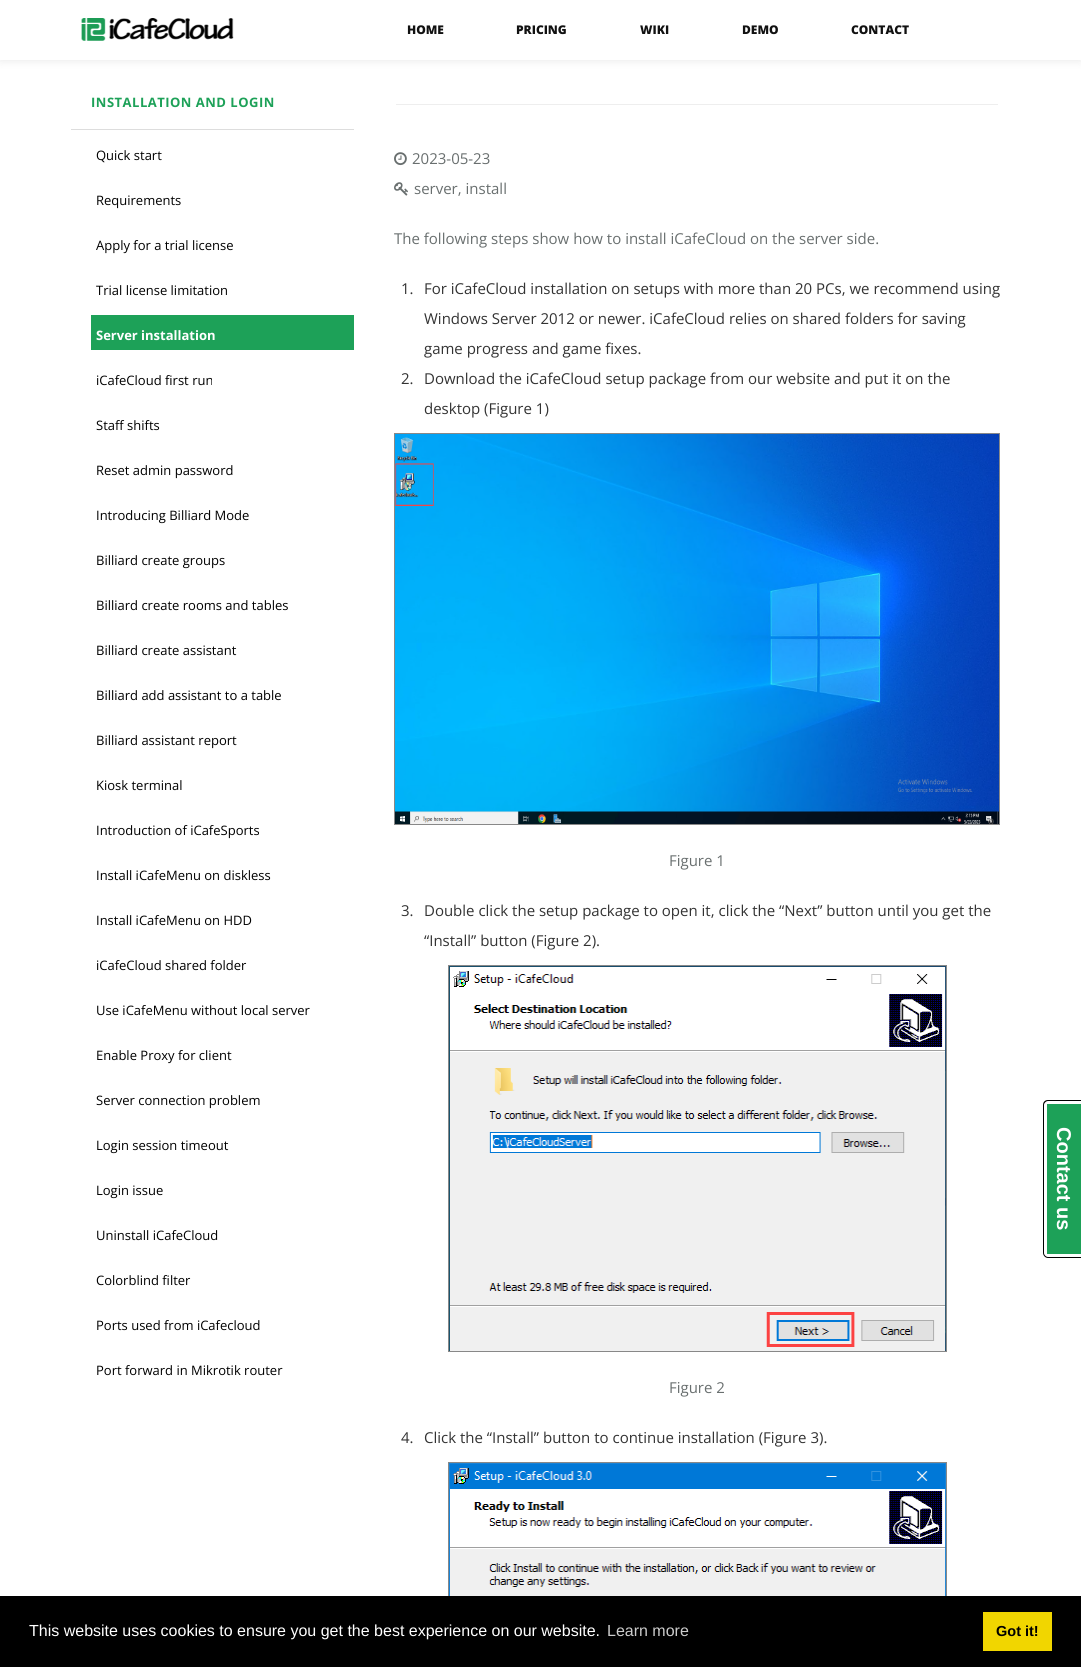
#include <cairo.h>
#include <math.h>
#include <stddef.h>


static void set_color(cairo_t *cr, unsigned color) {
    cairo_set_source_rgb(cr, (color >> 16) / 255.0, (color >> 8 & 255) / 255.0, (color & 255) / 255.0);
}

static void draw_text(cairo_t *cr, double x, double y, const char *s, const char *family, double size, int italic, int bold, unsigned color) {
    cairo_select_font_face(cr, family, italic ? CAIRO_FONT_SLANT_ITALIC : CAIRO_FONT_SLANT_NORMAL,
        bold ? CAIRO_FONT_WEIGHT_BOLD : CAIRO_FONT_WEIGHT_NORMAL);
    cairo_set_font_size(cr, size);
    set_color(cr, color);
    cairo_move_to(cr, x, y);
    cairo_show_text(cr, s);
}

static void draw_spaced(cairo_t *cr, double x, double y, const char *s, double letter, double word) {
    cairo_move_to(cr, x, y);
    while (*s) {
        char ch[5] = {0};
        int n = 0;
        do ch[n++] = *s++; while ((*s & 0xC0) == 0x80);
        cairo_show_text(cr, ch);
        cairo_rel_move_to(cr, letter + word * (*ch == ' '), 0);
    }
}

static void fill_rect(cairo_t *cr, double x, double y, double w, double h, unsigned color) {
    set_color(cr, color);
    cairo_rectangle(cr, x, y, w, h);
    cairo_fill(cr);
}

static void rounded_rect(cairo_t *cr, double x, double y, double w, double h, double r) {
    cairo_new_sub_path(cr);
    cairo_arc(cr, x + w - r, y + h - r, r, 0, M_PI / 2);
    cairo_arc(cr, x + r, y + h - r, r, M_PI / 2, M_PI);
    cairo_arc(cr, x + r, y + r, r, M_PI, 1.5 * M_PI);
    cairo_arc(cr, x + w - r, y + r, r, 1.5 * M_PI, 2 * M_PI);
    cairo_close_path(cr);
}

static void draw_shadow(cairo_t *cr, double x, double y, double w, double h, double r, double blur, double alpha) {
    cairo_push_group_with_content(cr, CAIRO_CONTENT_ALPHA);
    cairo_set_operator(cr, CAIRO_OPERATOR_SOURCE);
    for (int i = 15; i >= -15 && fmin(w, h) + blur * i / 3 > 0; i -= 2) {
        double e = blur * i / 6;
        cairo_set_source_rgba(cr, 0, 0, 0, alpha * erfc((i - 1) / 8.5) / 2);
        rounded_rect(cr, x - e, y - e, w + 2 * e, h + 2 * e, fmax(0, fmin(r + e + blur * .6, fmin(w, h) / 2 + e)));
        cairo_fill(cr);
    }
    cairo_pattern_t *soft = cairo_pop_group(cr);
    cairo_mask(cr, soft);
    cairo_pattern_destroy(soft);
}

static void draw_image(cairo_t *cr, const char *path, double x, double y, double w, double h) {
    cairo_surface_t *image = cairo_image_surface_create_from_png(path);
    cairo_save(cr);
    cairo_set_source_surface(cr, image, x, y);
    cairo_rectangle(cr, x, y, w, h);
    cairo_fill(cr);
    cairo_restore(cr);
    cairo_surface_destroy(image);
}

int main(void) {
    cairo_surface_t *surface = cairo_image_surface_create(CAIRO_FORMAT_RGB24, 1081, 1667);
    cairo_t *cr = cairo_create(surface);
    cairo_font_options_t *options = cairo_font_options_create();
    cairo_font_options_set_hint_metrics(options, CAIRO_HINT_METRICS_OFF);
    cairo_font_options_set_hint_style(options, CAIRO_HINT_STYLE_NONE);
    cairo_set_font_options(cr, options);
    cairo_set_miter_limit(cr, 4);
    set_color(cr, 0xFFFFFF);
    cairo_paint(cr);
    set_color(cr, 0x000000);
    draw_shadow(cr, 0, 0, 1081, 60, 0, 5, 0.1);
    fill_rect(cr, 0, 0, 1081, 60, 0xFFFFFF);
    draw_image(cr, "assets/img1.png", 81, 18, 153, 23);
    draw_text(cr, 407, 34, "HOME", "Open Sans ExtraBold", 12, 0, 0, 0x111111);
    draw_text(cr, 516, 34, "PRICING", "Open Sans ExtraBold", 12, 0, 0, 0x111111);
    draw_text(cr, 640, 34, "WIKI", "Open Sans ExtraBold", 12, 0, 0, 0x111111);
    draw_text(cr, 742, 34, "DEMO", "Open Sans ExtraBold", 12, 0, 0, 0x111111);
    draw_text(cr, 851, 34, "CONTACT", "Open Sans ExtraBold", 12, 0, 0, 0x111111);
    fill_rect(cr, 71, 129, 283, 1, 0xDDDDDD);
    cairo_select_font_face(cr, "Open Sans", CAIRO_FONT_SLANT_NORMAL, CAIRO_FONT_WEIGHT_BOLD);
    cairo_set_font_size(cr, 13);
    set_color(cr, 0x1DA158);
    draw_spaced(cr, 91, 107, "INSTALLATION AND LOGIN", 0.5, 0);
    draw_text(cr, 96, 160, "Quick start", "Open Sans", 13, 0, 0, 0x000000);
    draw_text(cr, 96, 205, "Requirements", "Open Sans", 13, 0, 0, 0x000000);
    draw_text(cr, 96, 250, "Apply for a trial license", "Open Sans", 13, 0, 0, 0x000000);
    draw_text(cr, 96, 295, "Trial license limitation", "Open Sans", 13, 0, 0, 0x000000);
    fill_rect(cr, 91, 315, 263, 35, 0x1DA158);
    draw_text(cr, 96, 340, "Server installation", "Open Sans", 13, 0, 1, 0xFFFFFF);
    draw_text(cr, 96, 385, "iCafeCloud first run", "Open Sans", 13, 0, 0, 0x000000);
    draw_text(cr, 96, 430, "Staff shifts", "Open Sans", 13, 0, 0, 0x000000);
    draw_text(cr, 96, 475, "Reset admin password", "Open Sans", 13, 0, 0, 0x000000);
    draw_text(cr, 96, 520, "Introducing Billiard Mode", "Open Sans", 13, 0, 0, 0x000000);
    draw_text(cr, 96, 565, "Billiard create groups", "Open Sans", 13, 0, 0, 0x000000);
    draw_text(cr, 96, 610, "Billiard create rooms and tables", "Open Sans", 13, 0, 0, 0x000000);
    draw_text(cr, 96, 655, "Billiard create assistant", "Open Sans", 13, 0, 0, 0x000000);
    draw_text(cr, 96, 700, "Billiard add assistant to a table", "Open Sans", 13, 0, 0, 0x000000);
    draw_text(cr, 96, 745, "Billiard assistant report", "Open Sans", 13, 0, 0, 0x000000);
    draw_text(cr, 96, 790, "Kiosk terminal", "Open Sans", 13, 0, 0, 0x000000);
    draw_text(cr, 96, 835, "Introduction of iCafeSports", "Open Sans", 13, 0, 0, 0x000000);
    draw_text(cr, 96, 880, "Install iCafeMenu on diskless", "Open Sans", 13, 0, 0, 0x000000);
    draw_text(cr, 96, 925, "Install iCafeMenu on HDD", "Open Sans", 13, 0, 0, 0x000000);
    draw_text(cr, 96, 970, "iCafeCloud shared folder", "Open Sans", 13, 0, 0, 0x000000);
    draw_text(cr, 96, 1015, "Use iCafeMenu without local server", "Open Sans", 13, 0, 0, 0x000000);
    draw_text(cr, 96, 1060, "Enable Proxy for client", "Open Sans", 13, 0, 0, 0x000000);
    draw_text(cr, 96, 1105, "Server connection problem", "Open Sans", 13, 0, 0, 0x000000);
    draw_text(cr, 96, 1150, "Login session timeout", "Open Sans", 13, 0, 0, 0x000000);
    draw_text(cr, 96, 1195, "Login issue", "Open Sans", 13, 0, 0, 0x000000);
    draw_text(cr, 96, 1240, "Uninstall iCafeCloud", "Open Sans", 13, 0, 0, 0x000000);
    draw_text(cr, 96, 1285, "Colorblind filter", "Open Sans", 13, 0, 0, 0x000000);
    draw_text(cr, 96, 1330, "Ports used from iCafecloud", "Open Sans", 13, 0, 0, 0x000000);
    draw_text(cr, 96, 1375, "Port forward in Mikrotik router", "Open Sans", 13, 0, 0, 0x000000);
    fill_rect(cr, 396, 104, 602, 1, 0xEEEEEE);
    draw_image(cr, "assets/img2.png", 394, 152, 13, 14);
    draw_text(cr, 412, 164, "2023-05-23", "Open Sans", 15, 0, 0, 0x696F6F);
    draw_image(cr, "assets/img3.png", 394, 182, 14, 14);
    draw_text(cr, 414, 194, "server, install", "Open Sans", 15, 0, 0, 0x696F6F);
    draw_text(cr, 394, 244, "The following steps show how to install iCafeCloud on the server side.", "Open Sans", 15, 0, 0, 0x696F6F);
    draw_text(cr, 401, 294, "1.", "Open Sans", 15, 0, 0, 0x333333);
    draw_text(cr, 424, 294, "For iCafeCloud installation on setups with more than 20 PCs, we recommend using", "Open Sans", 15, 0, 0, 0x333333);
    draw_text(cr, 424, 324, "Windows Server 2012 or newer. iCafeCloud relies on shared folders for saving", "Open Sans", 15, 0, 0, 0x333333);
    draw_text(cr, 424, 354, "game progress and game fixes.", "Open Sans", 15, 0, 0, 0x333333);
    draw_text(cr, 401, 384, "2.", "Open Sans", 15, 0, 0, 0x333333);
    draw_text(cr, 424, 384, "Download the iCafeCloud setup package from our website and put it on the", "Open Sans", 15, 0, 0, 0x333333);
    draw_text(cr, 424, 414, "desktop (Figure 1)", "Open Sans", 15, 0, 0, 0x333333);
    cairo_rectangle(cr, 394.5, 433.5, 605, 391);
    set_color(cr, 0x888888);
    cairo_set_line_width(cr, 1);
    cairo_stroke(cr);
    draw_image(cr, "assets/img4.png", 395, 434, 604, 390);
    draw_text(cr, 669, 866, "Figure 1", "Open Sans", 15, 0, 0, 0x696F6F);
    draw_text(cr, 401, 916, "3.", "Open Sans", 15, 0, 0, 0x333333);
    draw_text(cr, 424, 916, "Double click the setup package to open it, click the “Next” button until you get the", "Open Sans", 15, 0, 0, 0x333333);
    draw_text(cr, 424, 946, "“Install” button (Figure 2).", "Open Sans", 15, 0, 0, 0x333333);
    cairo_rectangle(cr, 448.5, 965.5, 498, 386);
    set_color(cr, 0x888888);
    cairo_stroke(cr);
    draw_image(cr, "assets/img5.png", 449, 966, 497, 385);
    draw_text(cr, 669, 1393, "Figure 2", "Open Sans", 15, 0, 0, 0x696F6F);
    draw_text(cr, 401, 1443, "4.", "Open Sans", 15, 0, 0, 0x333333);
    draw_text(cr, 424, 1443, "Click the “Install” button to continue installation (Figure 3).", "Open Sans", 15, 0, 0, 0x333333);
    cairo_rectangle(cr, 448.5, 1462.5, 498, 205);
    set_color(cr, 0x888888);
    cairo_stroke(cr);
    draw_image(cr, "assets/img6.png", 449, 1463, 497, 133);
    set_color(cr, 0x000000);
    cairo_set_fill_rule(cr, CAIRO_FILL_RULE_EVEN_ODD);
    cairo_new_path(cr);
    cairo_move_to(cr, 1081, 1100);
    cairo_line_to(cr, 1081, 1258);
    cairo_line_to(cr, 1048, 1258);
    cairo_curve_to(cr, 1045, 1258, 1043, 1255, 1043, 1253);
    cairo_line_to(cr, 1043, 1105);
    cairo_curve_to(cr, 1043, 1102, 1045, 1100, 1048, 1100);
    cairo_close_path(cr);
    cairo_move_to(cr, 1081, 1101);
    cairo_line_to(cr, 1081, 1257);
    cairo_line_to(cr, 1048, 1257);
    cairo_curve_to(cr, 1046, 1257, 1044, 1255, 1044, 1253);
    cairo_line_to(cr, 1044, 1105);
    cairo_curve_to(cr, 1044, 1103, 1046, 1101, 1048, 1101);
    cairo_close_path(cr);
    cairo_fill(cr);
    fill_rect(cr, 1047, 1104, 34, 150, 0x1DA158);
    cairo_save(cr);
    cairo_translate(cr, 1057, 1127);
    cairo_rotate(cr, 90 * M_PI / 180);
    draw_text(cr, 0, 0, "Contact us", "Liberation Sans", 20, 0, 1, 0xFFFFFF);
    cairo_restore(cr);
    fill_rect(cr, 0, 1596, 1081, 71, 0x000000);
    draw_text(cr, 29, 1636, "This website uses cookies to ensure you get the best experience on our website.", "Liberation Sans", 16, 0, 0, 0xFFFFFF);
    draw_text(cr, 607, 1636, "Learn more", "Liberation Sans", 16, 0, 0, 0xCCCCCC);
    fill_rect(cr, 983, 1612, 69, 39, 0xF1D600);
    draw_text(cr, 996, 1636, "Got it!", "Liberation Sans", 14.5, 0, 1, 0x000000);
    cairo_surface_write_to_png(surface, "output.png");
    cairo_font_options_destroy(options);
    cairo_destroy(cr);
    cairo_surface_destroy(surface);
    return 0;
}
